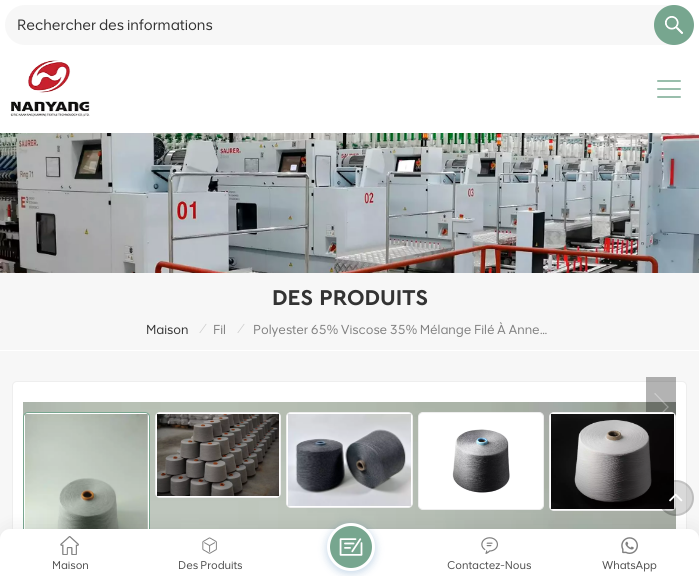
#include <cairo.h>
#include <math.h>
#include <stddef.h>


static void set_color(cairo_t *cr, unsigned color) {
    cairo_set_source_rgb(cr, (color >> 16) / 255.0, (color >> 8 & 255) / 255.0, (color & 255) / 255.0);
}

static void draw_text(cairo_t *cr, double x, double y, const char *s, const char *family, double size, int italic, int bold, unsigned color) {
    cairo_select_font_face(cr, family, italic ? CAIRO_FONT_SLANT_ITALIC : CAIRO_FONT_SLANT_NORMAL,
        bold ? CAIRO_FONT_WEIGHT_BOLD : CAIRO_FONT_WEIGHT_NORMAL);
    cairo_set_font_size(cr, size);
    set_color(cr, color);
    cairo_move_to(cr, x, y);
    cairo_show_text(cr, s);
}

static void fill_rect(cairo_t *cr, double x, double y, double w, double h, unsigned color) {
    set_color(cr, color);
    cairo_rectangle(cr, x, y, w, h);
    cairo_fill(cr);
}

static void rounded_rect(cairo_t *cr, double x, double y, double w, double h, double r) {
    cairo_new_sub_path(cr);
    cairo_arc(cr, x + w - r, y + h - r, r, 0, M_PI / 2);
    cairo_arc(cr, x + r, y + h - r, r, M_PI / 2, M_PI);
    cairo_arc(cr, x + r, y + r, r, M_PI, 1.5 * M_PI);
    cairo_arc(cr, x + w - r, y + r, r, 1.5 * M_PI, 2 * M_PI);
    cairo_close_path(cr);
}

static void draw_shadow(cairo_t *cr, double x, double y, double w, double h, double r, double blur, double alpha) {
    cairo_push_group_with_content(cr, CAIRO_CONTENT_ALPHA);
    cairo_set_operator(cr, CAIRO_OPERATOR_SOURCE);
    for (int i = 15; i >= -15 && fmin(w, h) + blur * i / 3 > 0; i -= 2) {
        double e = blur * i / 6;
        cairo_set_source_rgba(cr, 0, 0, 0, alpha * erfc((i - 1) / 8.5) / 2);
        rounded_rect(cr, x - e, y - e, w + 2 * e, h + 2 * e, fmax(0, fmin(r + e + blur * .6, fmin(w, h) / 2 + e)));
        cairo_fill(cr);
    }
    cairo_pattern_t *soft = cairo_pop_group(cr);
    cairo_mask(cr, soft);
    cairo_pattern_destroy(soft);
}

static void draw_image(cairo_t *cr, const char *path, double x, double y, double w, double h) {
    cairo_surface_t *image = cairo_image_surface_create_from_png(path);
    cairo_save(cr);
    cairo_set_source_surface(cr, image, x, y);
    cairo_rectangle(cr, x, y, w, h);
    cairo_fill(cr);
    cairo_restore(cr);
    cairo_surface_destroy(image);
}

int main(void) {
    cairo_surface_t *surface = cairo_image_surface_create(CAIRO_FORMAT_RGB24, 699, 576);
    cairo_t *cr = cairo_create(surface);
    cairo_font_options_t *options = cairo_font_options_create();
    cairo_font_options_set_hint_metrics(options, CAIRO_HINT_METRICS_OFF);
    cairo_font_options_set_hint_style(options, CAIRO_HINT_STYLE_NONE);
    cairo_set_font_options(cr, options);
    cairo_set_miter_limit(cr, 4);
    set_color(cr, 0xFFFFFF);
    cairo_paint(cr);
    set_color(cr, 0xF7F7F7);
    rounded_rect(cr, 5, 5, 689, 40, 20);
    cairo_fill(cr);
    draw_text(cr, 17, 30, "Rechercher des informations", "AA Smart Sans", 15, 0, 0, 0x333333);
    set_color(cr, 0x77A68F);
    cairo_new_path(cr);
    cairo_arc(cr, 674, 25, 20, 0, 2 * M_PI);
    cairo_fill(cr);
    draw_image(cr, "assets/img1.png", 665, 16, 18, 18);
    draw_image(cr, "assets/img2.png", 10, 60, 80, 57);
    set_color(cr, 0x99BEAC);
    rounded_rect(cr, 657, 88, 24, 2, 1);
    cairo_fill(cr);
    rounded_rect(cr, 657, 80, 24, 2, 1);
    cairo_fill(cr);
    rounded_rect(cr, 657, 96, 24, 2, 1);
    cairo_fill(cr);
    draw_image(cr, "assets/img3.png", 0, 133, 699, 140);
    fill_rect(cr, 0, 273, 699, 77, 0xF7F7F7);
    draw_text(cr, 272, 305, "DES PRODUITS", "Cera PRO", 22.5, 0, 1, 0x333333);
    draw_text(cr, 146, 334, "Maison", "AA Smart Sans", 13, 0, 0, 0x333333);
    draw_text(cr, 199, 333, "/", "AA Smart Sans", 13, 1, 0, 0xCCCCCC);
    draw_text(cr, 213, 334, "Fil", "AA Smart Sans", 13, 0, 0, 0x808080);
    draw_text(cr, 237, 333, "/", "AA Smart Sans", 13, 1, 0, 0xCCCCCC);
    draw_text(cr, 253, 334, "Polyester 65% Viscose 35% Mélange Filé À Anne…", "AA Smart Sans", 13, 0, 0, 0x808080);
    fill_rect(cr, 0, 351, 699, 188, 0xF7F7F7);
    set_color(cr, 0xFFFFFF);
    rounded_rect(cr, 12.5, 381.5, 674, 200, 4.5);
    cairo_fill_preserve(cr);
    set_color(cr, 0xEEEEEE);
    cairo_set_line_width(cr, 1);
    cairo_stroke(cr);
    draw_image(cr, "assets/img5.png", 23, 402, 653, 127);
    cairo_set_source_rgba(cr, 0, 0, 0, 0.3);
    cairo_rectangle(cr, 646, 377, 30, 40);
    cairo_fill(cr);
    draw_image(cr, "assets/img4.png", 654, 393, 15, 19);
    set_color(cr, 0xFFFFFF);
    rounded_rect(cr, 23.5, 412.5, 126, 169, 4.5);
    cairo_fill_preserve(cr);
    set_color(cr, 0x77A68F);
    cairo_stroke(cr);
    draw_image(cr, "assets/img6.png", 25, 414, 123, 115);
    set_color(cr, 0xFFFFFF);
    rounded_rect(cr, 155.5, 412.5, 125, 85, 4.5);
    cairo_fill_preserve(cr);
    set_color(cr, 0xEEEEEE);
    cairo_stroke(cr);
    draw_image(cr, "assets/img7.png", 157, 414, 122, 82);
    set_color(cr, 0xFFFFFF);
    rounded_rect(cr, 286.5, 412.5, 126, 95, 4.5);
    cairo_fill_preserve(cr);
    set_color(cr, 0xEEEEEE);
    cairo_stroke(cr);
    draw_image(cr, "assets/img8.png", 288, 414, 123, 92);
    set_color(cr, 0xFFFFFF);
    rounded_rect(cr, 418.5, 412.5, 125, 97, 4.5);
    cairo_fill_preserve(cr);
    set_color(cr, 0xEEEEEE);
    cairo_stroke(cr);
    draw_image(cr, "assets/img9.png", 452, 429, 58, 64);
    set_color(cr, 0xFFFFFF);
    rounded_rect(cr, 549.5, 412.5, 126, 98, 4.5);
    cairo_fill_preserve(cr);
    set_color(cr, 0xEEEEEE);
    cairo_stroke(cr);
    draw_image(cr, "assets/img10.png", 551, 414, 123, 95);
    cairo_set_source_rgba(cr, 0, 0, 0, 0.15);
    cairo_arc(cr, 676, 498, 18, 0, 2 * M_PI);
    cairo_fill(cr);
    cairo_arc(cr, 676, 498, 17, 0, 2 * M_PI);
    cairo_set_source_rgba(cr, 0, 0, 0, 0.1);
    cairo_set_line_width(cr, 2);
    cairo_stroke(cr);
    draw_image(cr, "assets/img11.png", 669, 493, 14, 9);
    set_color(cr, 0x000000);
    draw_shadow(cr, 2, 529, 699, 47, 10, 10, 0.08);
    set_color(cr, 0xFFFFFF);
    cairo_new_path(cr);
    cairo_move_to(cr, 10, 529);
    cairo_line_to(cr, 689, 529);
    cairo_curve_to(cr, 694.5, 529, 699, 533.5, 699, 539);
    cairo_line_to(cr, 699, 576);
    cairo_line_to(cr, 0, 576);
    cairo_line_to(cr, 0, 539);
    cairo_curve_to(cr, 0, 533.5, 4.5, 529, 10, 529);
    cairo_close_path(cr);
    cairo_fill(cr);
    set_color(cr, 0x004E98);
    draw_shadow(cr, 326, 524, 50, 50, 25, 4, 0.2);
    set_color(cr, 0x77A68F);
    cairo_arc(cr, 351, 547, 22.5, 0, 2 * M_PI);
    cairo_fill_preserve(cr);
    set_color(cr, 0xFFFFFF);
    cairo_set_line_width(cr, 3);
    cairo_stroke(cr);
    draw_image(cr, "assets/img12.png", 339, 538, 24, 18);
    draw_image(cr, "assets/img13.png", 60, 536, 19, 19);
    draw_text(cr, 52, 569, "Maison", "AA Smart Sans", 11.25, 0, 0, 0x4D4D4D);
    draw_image(cr, "assets/img14.png", 202, 537, 15, 17);
    draw_text(cr, 178, 569, "Des Produits", "AA Smart Sans", 11.25, 0, 0, 0x4D4D4D);
    draw_image(cr, "assets/img15.png", 481, 537, 17, 17);
    draw_text(cr, 447, 569, "Contactez-Nous", "AA Smart Sans", 11.25, 0, 0, 0x4D4D4D);
    draw_image(cr, "assets/img16.png", 621, 537, 17, 17);
    draw_text(cr, 602, 569, "WhatsApp", "AA Smart Sans", 11.25, 0, 0, 0x4D4D4D);
    cairo_surface_write_to_png(surface, "output.png");
    cairo_font_options_destroy(options);
    cairo_destroy(cr);
    cairo_surface_destroy(surface);
    return 0;
}
